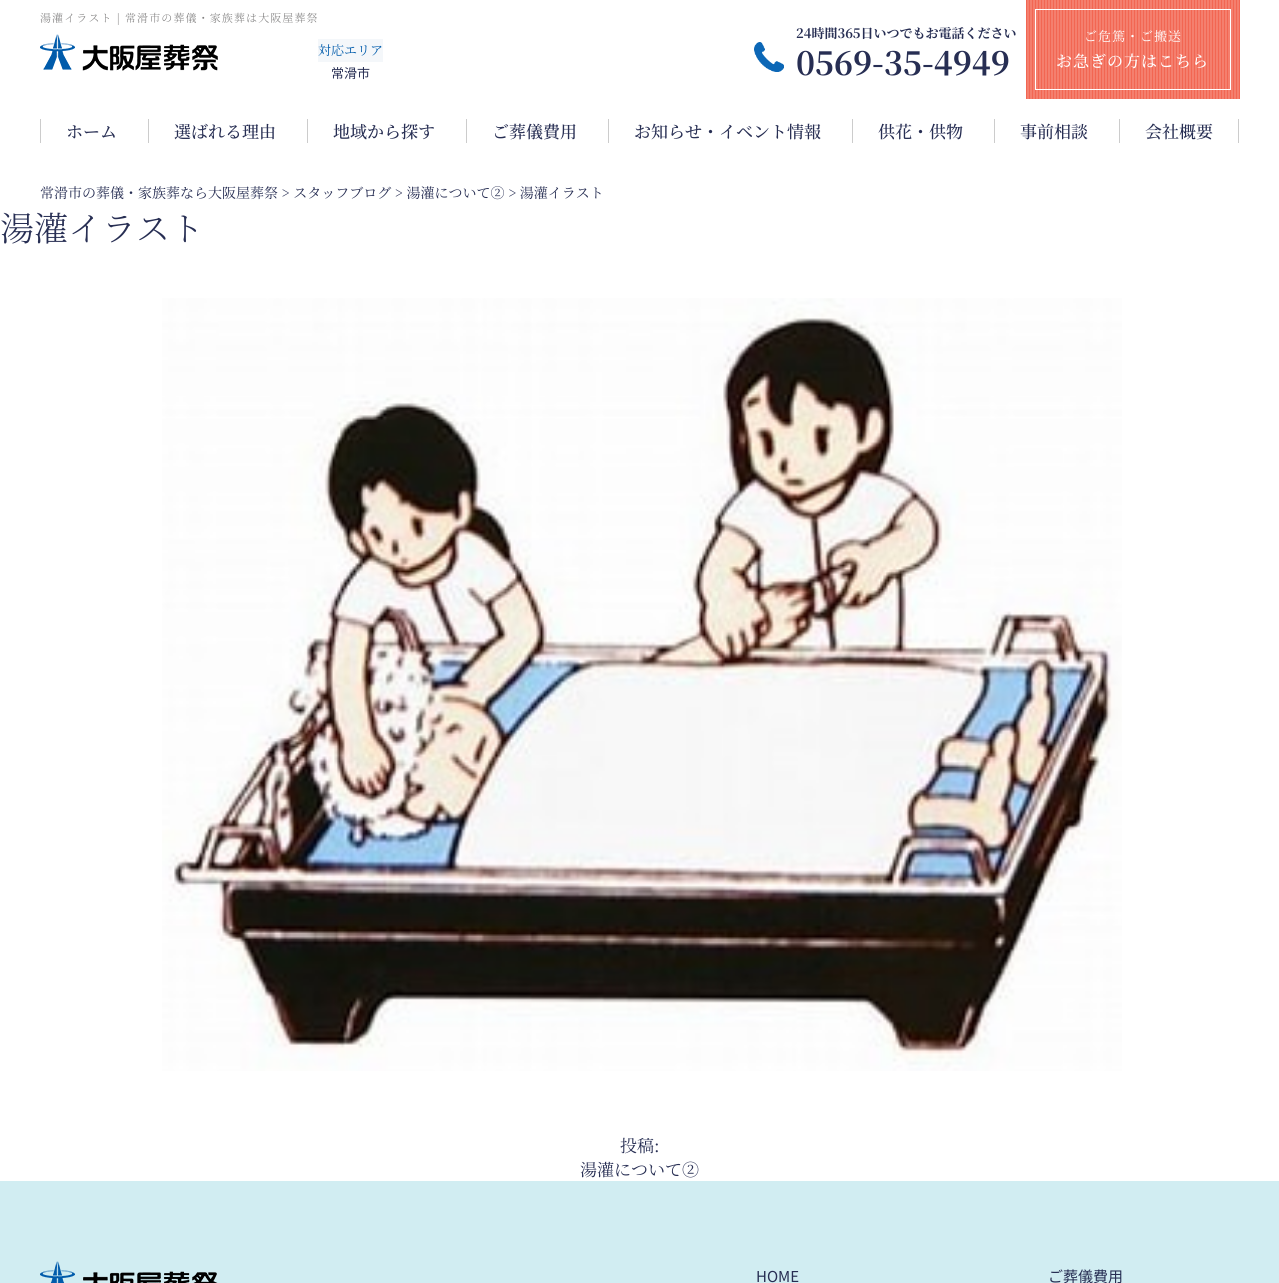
#include <cairo.h>
#include <math.h>
#include <stddef.h>


static void set_color(cairo_t *cr, unsigned color) {
    cairo_set_source_rgb(cr, (color >> 16) / 255.0, (color >> 8 & 255) / 255.0, (color & 255) / 255.0);
}

static void draw_text(cairo_t *cr, double x, double y, const char *s, const char *family, double size, int italic, int bold, unsigned color) {
    cairo_select_font_face(cr, family, italic ? CAIRO_FONT_SLANT_ITALIC : CAIRO_FONT_SLANT_NORMAL,
        bold ? CAIRO_FONT_WEIGHT_BOLD : CAIRO_FONT_WEIGHT_NORMAL);
    cairo_set_font_size(cr, size);
    set_color(cr, color);
    cairo_move_to(cr, x, y);
    cairo_show_text(cr, s);
}

static void draw_spaced(cairo_t *cr, double x, double y, const char *s, double letter, double word) {
    cairo_move_to(cr, x, y);
    while (*s) {
        char ch[5] = {0};
        int n = 0;
        do ch[n++] = *s++; while ((*s & 0xC0) == 0x80);
        cairo_show_text(cr, ch);
        cairo_rel_move_to(cr, letter + word * (*ch == ' '), 0);
    }
}

static void fill_rect(cairo_t *cr, double x, double y, double w, double h, unsigned color) {
    set_color(cr, color);
    cairo_rectangle(cr, x, y, w, h);
    cairo_fill(cr);
}

static void draw_image(cairo_t *cr, const char *path, double x, double y, double w, double h) {
    cairo_surface_t *image = cairo_image_surface_create_from_png(path);
    cairo_save(cr);
    cairo_set_source_surface(cr, image, x, y);
    cairo_rectangle(cr, x, y, w, h);
    cairo_fill(cr);
    cairo_restore(cr);
    cairo_surface_destroy(image);
}

int main(void) {
    cairo_surface_t *surface = cairo_image_surface_create(CAIRO_FORMAT_RGB24, 1279, 1283);
    cairo_t *cr = cairo_create(surface);
    cairo_font_options_t *options = cairo_font_options_create();
    cairo_font_options_set_hint_metrics(options, CAIRO_HINT_METRICS_OFF);
    cairo_font_options_set_hint_style(options, CAIRO_HINT_STYLE_NONE);
    cairo_set_font_options(cr, options);
    cairo_set_miter_limit(cr, 4);
    set_color(cr, 0xFFFFFF);
    cairo_paint(cr);
    cairo_select_font_face(cr, "Noto Serif JP Light", CAIRO_FONT_SLANT_NORMAL, CAIRO_FONT_WEIGHT_NORMAL);
    cairo_set_font_size(cr, 11);
    set_color(cr, 0x7F7E7E);
    draw_spaced(cr, 40, 22, "湯灌イラスト | 常滑市の葬儀・家族葬は大阪屋葬祭", 1.1, 0);
    draw_image(cr, "assets/img1.png", 40, 34, 178, 37);
    fill_rect(cr, 318, 39, 65, 23, 0xF4F7FA);
    draw_text(cr, 318, 55, "対応エリア", "Noto Serif JP", 13, 0, 0, 0x005BAB);
    draw_text(cr, 331, 78, "常滑市", "Noto Sans JP", 13, 0, 0, 0x272E53);
    draw_image(cr, "assets/img2.png", 754, 42, 30, 30);
    draw_text(cr, 796, 38, "24時間365日いつでもお電話ください", "Noto Serif JP", 13, 0, 1, 0x272E53);
    draw_text(cr, 796, 75, "0569-35-4949", "Noto Serif JP", 32, 0, 1, 0x272E53);
    fill_rect(cr, 1026, 0, 214, 99, 0xF26652);
    draw_image(cr, "assets/img3.png", 1027, 0, 212, 99);
    cairo_rectangle(cr, 1035.5, 9.5, 195, 80);
    set_color(cr, 0xFFFFFF);
    cairo_set_line_width(cr, 1);
    cairo_stroke(cr);
    cairo_select_font_face(cr, "Noto Serif JP", CAIRO_FONT_SLANT_NORMAL, CAIRO_FONT_WEIGHT_NORMAL);
    cairo_set_font_size(cr, 13);
    draw_spaced(cr, 1084, 41, "ご危篤・ご搬送", 1, 0);
    cairo_select_font_face(cr, "Noto Serif JP Medium", CAIRO_FONT_SLANT_NORMAL, CAIRO_FONT_WEIGHT_NORMAL);
    cairo_set_font_size(cr, 16);
    draw_spaced(cr, 1056, 67, "お急ぎの方はこちら", 1, 0);
    fill_rect(cr, 40, 119, 1, 24, 0xCCCCCC);
    draw_text(cr, 66, 138, "ホーム", "Noto Serif JP Medium", 17, 0, 0, 0x272E53);
    fill_rect(cr, 148, 119, 1, 24, 0xCCCCCC);
    draw_text(cr, 174, 138, "選ばれる理由", "Noto Serif JP Medium", 17, 0, 0, 0x272E53);
    fill_rect(cr, 307, 119, 1, 24, 0xCCCCCC);
    draw_text(cr, 333, 138, "地域から探す", "Noto Serif JP Medium", 17, 0, 0, 0x272E53);
    fill_rect(cr, 466, 119, 1, 24, 0xCCCCCC);
    draw_text(cr, 492, 138, "ご葬儀費用", "Noto Serif JP Medium", 17, 0, 0, 0x272E53);
    fill_rect(cr, 608, 119, 1, 24, 0xCCCCCC);
    draw_text(cr, 634, 138, "お知らせ・イベント情報", "Noto Serif JP Medium", 17, 0, 0, 0x272E53);
    fill_rect(cr, 852, 119, 1, 24, 0xCCCCCC);
    draw_text(cr, 878, 138, "供花・供物", "Noto Serif JP Medium", 17, 0, 0, 0x272E53);
    fill_rect(cr, 994, 119, 1, 24, 0xCCCCCC);
    draw_text(cr, 1020, 138, "事前相談", "Noto Serif JP Medium", 17, 0, 0, 0x272E53);
    fill_rect(cr, 1238, 119, 1, 24, 0xCCCCCC);
    fill_rect(cr, 1119, 119, 1, 24, 0xCCCCCC);
    draw_text(cr, 1145, 138, "会社概要", "Noto Serif JP Medium", 17, 0, 0, 0x272E53);
    draw_text(cr, 40, 198, "常滑市の葬儀・家族葬なら大阪屋葬祭 > スタッフブログ > 湯灌について② > 湯灌イラスト", "Noto Serif JP", 14, 0, 0, 0x272E53);
    draw_text(cr, 0, 241, "湯灌イラスト", "Noto Serif JP Light", 34, 0, 0, 0x272E53);
    draw_image(cr, "assets/img4.png", 162, 298, 960, 773);
    draw_text(cr, 620, 1152, "投稿:", "Noto Serif JP", 17, 0, 0, 0x272E53);
    draw_text(cr, 580, 1176, "湯灌について②", "Noto Serif JP", 17, 0, 0, 0x272E53);
    fill_rect(cr, 0, 1181, 1279, 102, 0xD1EDF2);
    draw_image(cr, "assets/img5.png", 40, 1261, 178, 22);
    draw_text(cr, 756, 1282, "HOME", "Noto Sans JP", 15, 0, 0, 0x272E53);
    draw_text(cr, 1048, 1282, "ご葬儀費用", "Noto Sans JP", 15, 0, 0, 0x272E53);
    cairo_surface_write_to_png(surface, "output.png");
    cairo_font_options_destroy(options);
    cairo_destroy(cr);
    cairo_surface_destroy(surface);
    return 0;
}
